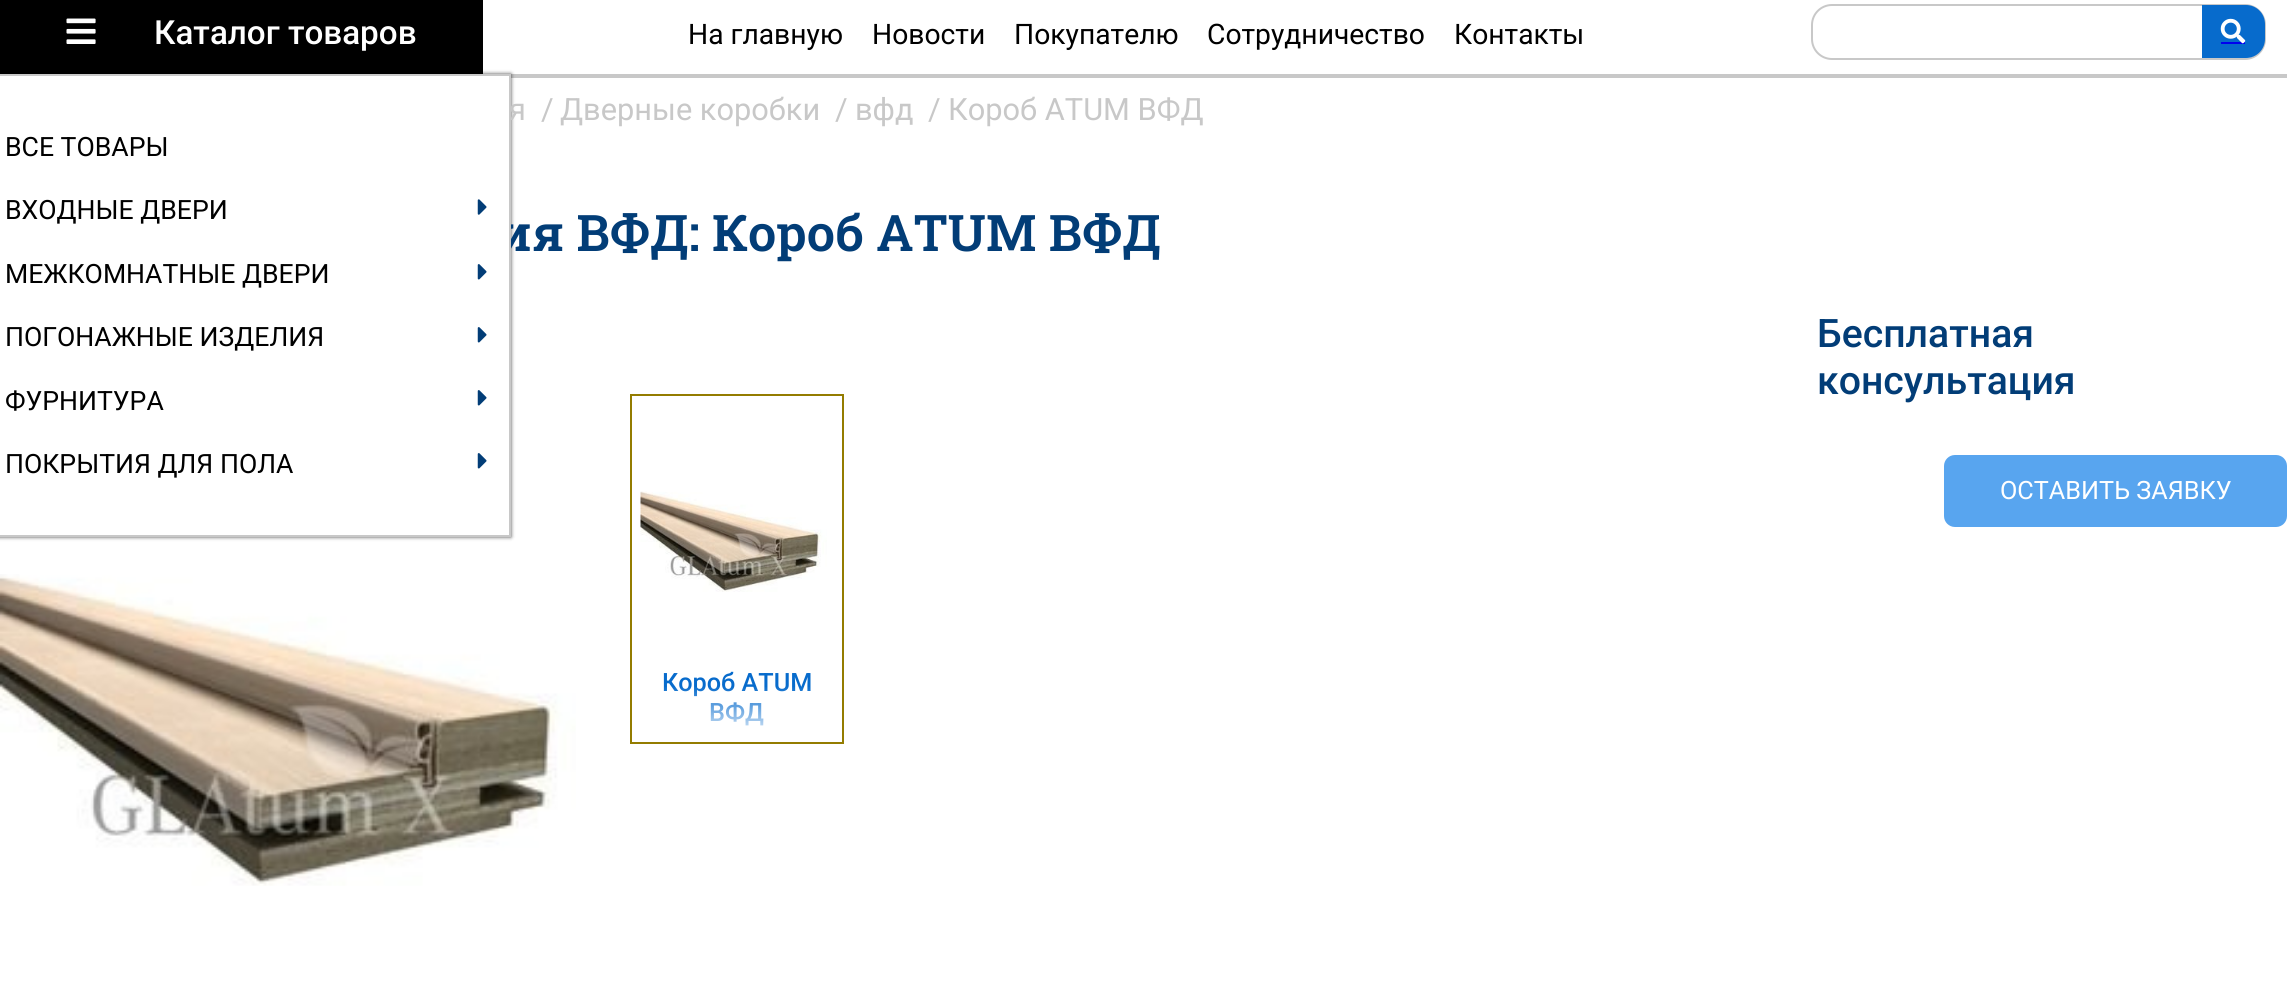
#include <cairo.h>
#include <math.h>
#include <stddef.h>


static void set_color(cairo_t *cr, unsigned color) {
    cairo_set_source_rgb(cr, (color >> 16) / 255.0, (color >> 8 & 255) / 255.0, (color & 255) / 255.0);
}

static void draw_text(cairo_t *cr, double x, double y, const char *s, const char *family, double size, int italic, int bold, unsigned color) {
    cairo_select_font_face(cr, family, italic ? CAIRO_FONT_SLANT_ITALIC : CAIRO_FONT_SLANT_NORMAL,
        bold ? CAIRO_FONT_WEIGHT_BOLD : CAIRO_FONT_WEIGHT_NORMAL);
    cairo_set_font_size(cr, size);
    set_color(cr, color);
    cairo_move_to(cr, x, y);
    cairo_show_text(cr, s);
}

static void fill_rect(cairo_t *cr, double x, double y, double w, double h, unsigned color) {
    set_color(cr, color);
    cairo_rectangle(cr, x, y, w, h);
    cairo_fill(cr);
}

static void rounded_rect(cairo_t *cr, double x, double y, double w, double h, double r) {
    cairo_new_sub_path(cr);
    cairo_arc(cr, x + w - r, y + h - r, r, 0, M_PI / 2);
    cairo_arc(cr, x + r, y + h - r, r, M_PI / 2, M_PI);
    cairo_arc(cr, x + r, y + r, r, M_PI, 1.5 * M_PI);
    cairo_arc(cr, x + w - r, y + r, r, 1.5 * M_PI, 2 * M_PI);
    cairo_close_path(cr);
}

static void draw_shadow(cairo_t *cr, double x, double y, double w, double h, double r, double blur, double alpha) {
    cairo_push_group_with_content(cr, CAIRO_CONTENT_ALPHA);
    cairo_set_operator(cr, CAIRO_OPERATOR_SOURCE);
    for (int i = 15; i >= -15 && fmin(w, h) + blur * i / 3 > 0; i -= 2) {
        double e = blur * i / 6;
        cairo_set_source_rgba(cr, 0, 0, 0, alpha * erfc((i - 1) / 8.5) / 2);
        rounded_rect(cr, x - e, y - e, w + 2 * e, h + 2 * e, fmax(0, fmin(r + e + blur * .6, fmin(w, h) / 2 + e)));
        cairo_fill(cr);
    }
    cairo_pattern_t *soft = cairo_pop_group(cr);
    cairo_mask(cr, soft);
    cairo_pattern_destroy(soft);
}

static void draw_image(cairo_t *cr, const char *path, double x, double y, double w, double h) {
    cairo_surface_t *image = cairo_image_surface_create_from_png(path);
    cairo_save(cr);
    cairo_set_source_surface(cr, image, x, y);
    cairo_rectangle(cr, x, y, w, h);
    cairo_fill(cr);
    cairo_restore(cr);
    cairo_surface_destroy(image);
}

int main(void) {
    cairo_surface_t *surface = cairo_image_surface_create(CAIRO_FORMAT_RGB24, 2287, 983);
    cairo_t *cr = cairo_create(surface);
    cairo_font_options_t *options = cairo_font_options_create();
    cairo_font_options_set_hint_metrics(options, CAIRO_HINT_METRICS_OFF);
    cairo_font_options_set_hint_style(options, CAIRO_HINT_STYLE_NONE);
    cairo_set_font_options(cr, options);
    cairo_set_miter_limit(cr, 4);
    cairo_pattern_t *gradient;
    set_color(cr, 0xFFFFFF);
    cairo_paint(cr);
    fill_rect(cr, 511, 74, 1776, 4, 0xC8C8C8);
    fill_rect(cr, 0, 0, 483, 74, 0x000000);
    draw_image(cr, "assets/img1.png", 66, 18, 30, 26);
    draw_text(cr, 154, 44, "Каталог товаров", "Roboto Medium", 33.25, 0, 0, 0xFFFFFF);
    set_color(cr, 0x000000);
    draw_shadow(cr, -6, 74, 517, 463, 0, 2, 0.7);
    draw_text(cr, 509, 120, "я", "Roboto", 30.75, 0, 0, 0xC8C8C8);
    draw_text(cr, 497, 251, "ия ВФД: Короб ATUM ВФД", "Roboto Slab SemiBold", 50.4, 0, 0, 0x023D77);
    set_color(cr, 0xFFFFFF);
    cairo_rectangle(cr, -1, 75, 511, 461);
    cairo_fill_preserve(cr);
    set_color(cr, 0xC8C8C8);
    cairo_stroke(cr);
    draw_text(cr, 5, 156, "ВСЕ ТОВАРЫ", "Roboto", 26.6, 0, 0, 0x000000);
    draw_text(cr, 5, 219, "ВХОДНЫЕ ДВЕРИ", "Roboto", 26.6, 0, 0, 0x000000);
    draw_image(cr, "assets/img2.png", 477, 199, 10, 16);
    draw_text(cr, 5, 283, "МЕЖКОМНАТНЫЕ ДВЕРИ", "Roboto", 26.6, 0, 0, 0x000000);
    draw_image(cr, "assets/img3.png", 477, 264, 10, 16);
    draw_text(cr, 5, 346, "ПОГОНАЖНЫЕ ИЗДЕЛИЯ", "Roboto", 26.6, 0, 0, 0x000000);
    draw_image(cr, "assets/img3.png", 477, 327, 10, 16);
    draw_text(cr, 5, 410, "ФУРНИТУРА", "Roboto", 26.6, 0, 0, 0x000000);
    draw_image(cr, "assets/img3.png", 477, 390, 10, 16);
    draw_text(cr, 5, 473, "ПОКРЫТИЯ ДЛЯ ПОЛА", "Roboto", 26.6, 0, 0, 0x000000);
    draw_image(cr, "assets/img3.png", 477, 453, 10, 16);
    draw_text(cr, 688, 44, "На главную", "Roboto", 28.25, 0, 0, 0x000000);
    draw_text(cr, 872, 44, "Новости", "Roboto", 28.25, 0, 0, 0x000000);
    draw_text(cr, 1014, 44, "Покупателю", "Roboto", 28.25, 0, 0, 0x000000);
    draw_text(cr, 1207, 44, "Сотрудничество", "Roboto", 28.25, 0, 0, 0x000000);
    draw_text(cr, 1454, 44, "Контакты", "Roboto", 28.25, 0, 0, 0x000000);
    rounded_rect(cr, 1812, 5, 453, 54, 20);
    set_color(cr, 0xC8C8C8);
    cairo_stroke(cr);
    set_color(cr, 0x076BCC);
    cairo_new_path(cr);
    cairo_move_to(cr, 2202, 5);
    cairo_line_to(cr, 2246, 5);
    cairo_curve_to(cr, 2256.5, 5, 2265, 13.5, 2265, 24);
    cairo_line_to(cr, 2265, 39);
    cairo_curve_to(cr, 2265, 49.5, 2256.5, 58, 2246, 58);
    cairo_line_to(cr, 2202, 58);
    cairo_close_path(cr);
    cairo_fill(cr);
    fill_rect(cr, 2221, 42, 24, 2, 0x0000EE);
    draw_image(cr, "assets/img4.png", 2220, 18, 26, 26);
    draw_text(cr, 541, 120, "/", "Roboto", 30.75, 0, 0, 0xC8C8C8);
    draw_text(cr, 560, 120, "Дверные коробки", "Roboto", 30.75, 0, 0, 0xC8C8C8);
    draw_text(cr, 835, 120, "/", "Roboto", 30.75, 0, 0, 0xC8C8C8);
    draw_text(cr, 855, 120, "вфд", "Roboto", 30.75, 0, 0, 0xC8C8C8);
    draw_text(cr, 928, 120, "/", "Roboto", 30.75, 0, 0, 0xC8C8C8);
    draw_text(cr, 948, 120, "Короб ATUM ВФД", "Roboto", 30.75, 0, 0, 0xC8C8C8);
    draw_image(cr, "assets/img5.png", 0, 574, 576, 312);
    cairo_rectangle(cr, 631, 395, 212, 348);
    set_color(cr, 0x947C00);
    cairo_stroke(cr);
    draw_image(cr, "assets/img6.png", 640, 491, 187, 101);
    draw_text(cr, 662, 691, "Короб ATUM", "Roboto Medium", 25.25, 0, 0, 0x076BCC);
    draw_text(cr, 709, 721, "ВФД", "Roboto Medium", 25.25, 0, 0, 0x076BCC);
    gradient = cairo_pattern_create_linear(747, 742, 747, 686);
    cairo_pattern_add_color_stop_rgba(gradient, 0, 1, 1, 1, 1);
    cairo_pattern_add_color_stop_rgba(gradient, 1, 1, 1, 1, 0);
    cairo_set_source(cr, gradient);
    cairo_pattern_destroy(gradient);
    cairo_rectangle(cr, 663, 687, 147, 39);
    cairo_fill(cr);
    draw_text(cr, 1817, 347, "Бесплатная", "Roboto Medium", 39.25, 0, 0, 0x023D77);
    draw_text(cr, 1817, 394, "консультация", "Roboto Medium", 39.25, 0, 0, 0x023D77);
    set_color(cr, 0x58A5EF);
    rounded_rect(cr, 1944, 455, 343, 72, 11);
    cairo_fill(cr);
    draw_text(cr, 2000, 499, "ОСТАВИТЬ ЗАЯВКУ", "Roboto", 25.25, 0, 0, 0xFFFFFF);
    cairo_surface_write_to_png(surface, "output.png");
    cairo_font_options_destroy(options);
    cairo_destroy(cr);
    cairo_surface_destroy(surface);
    return 0;
}
